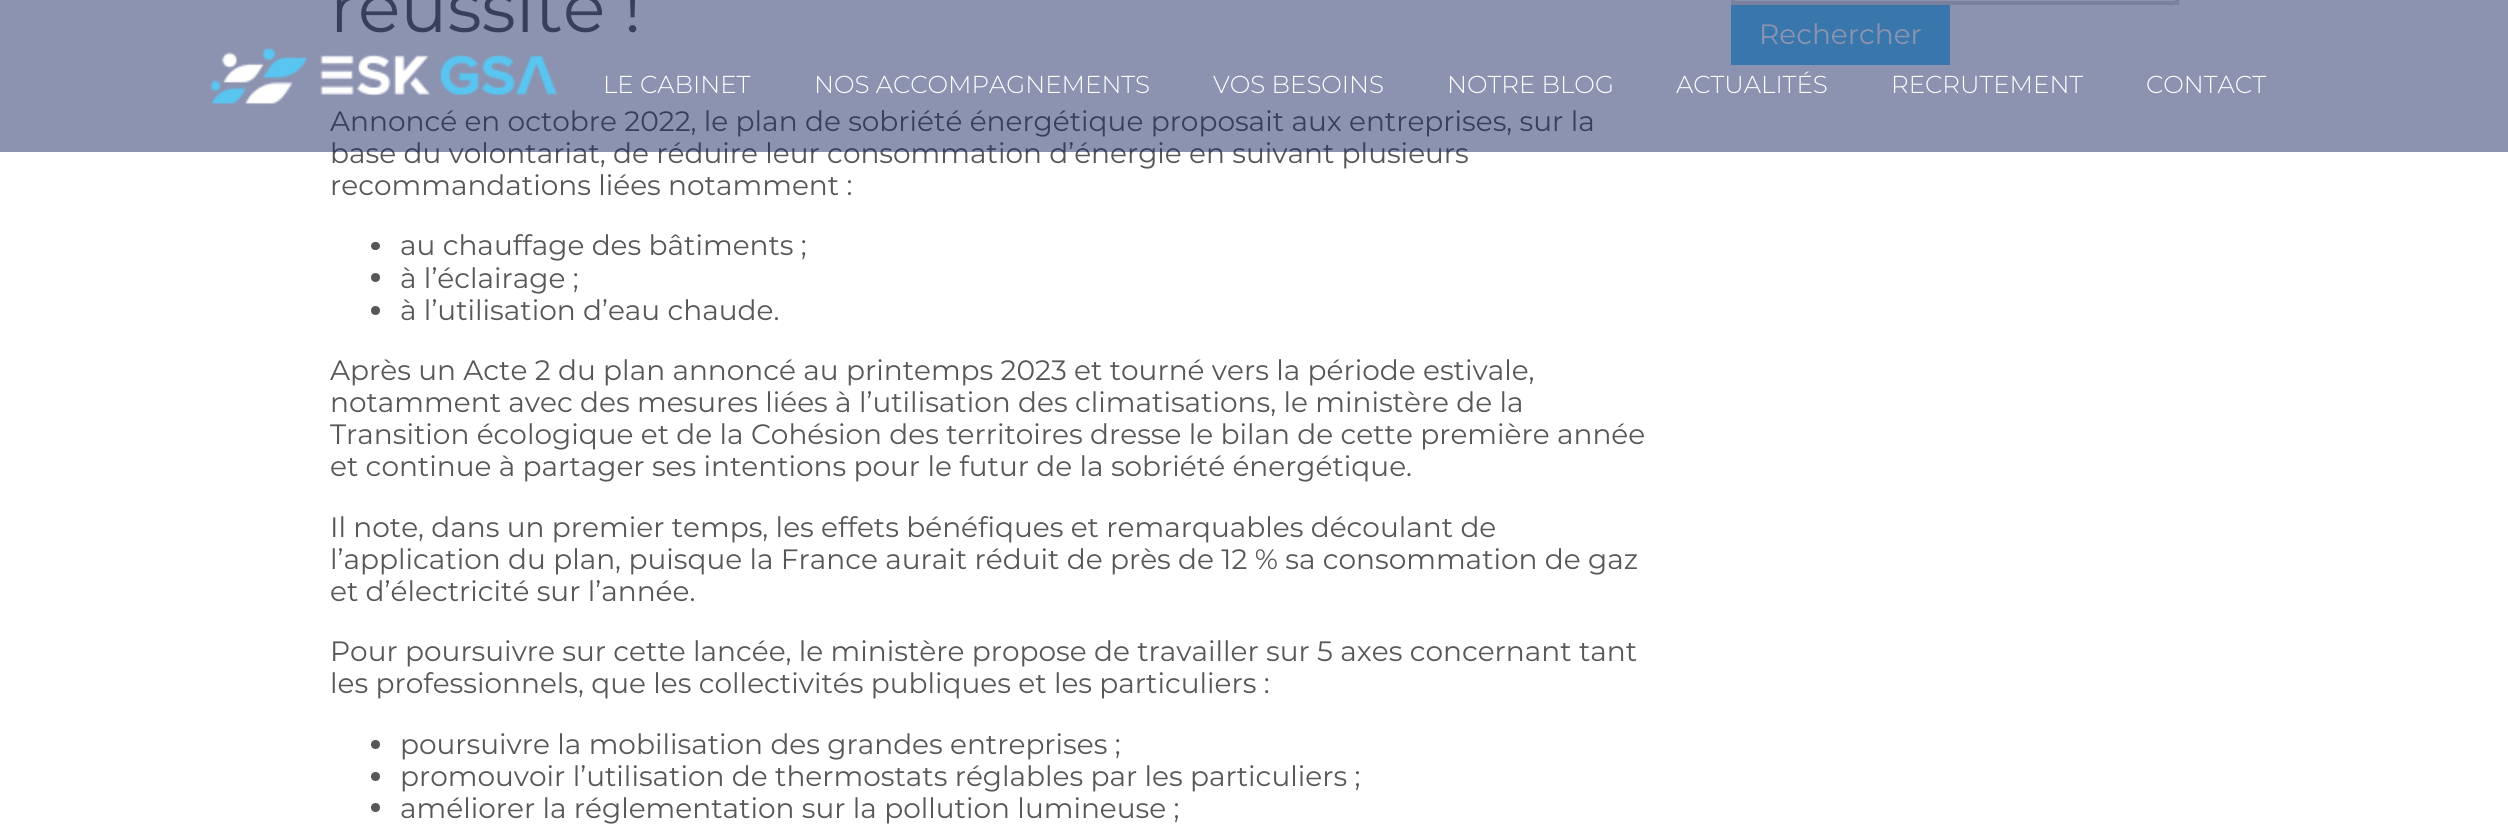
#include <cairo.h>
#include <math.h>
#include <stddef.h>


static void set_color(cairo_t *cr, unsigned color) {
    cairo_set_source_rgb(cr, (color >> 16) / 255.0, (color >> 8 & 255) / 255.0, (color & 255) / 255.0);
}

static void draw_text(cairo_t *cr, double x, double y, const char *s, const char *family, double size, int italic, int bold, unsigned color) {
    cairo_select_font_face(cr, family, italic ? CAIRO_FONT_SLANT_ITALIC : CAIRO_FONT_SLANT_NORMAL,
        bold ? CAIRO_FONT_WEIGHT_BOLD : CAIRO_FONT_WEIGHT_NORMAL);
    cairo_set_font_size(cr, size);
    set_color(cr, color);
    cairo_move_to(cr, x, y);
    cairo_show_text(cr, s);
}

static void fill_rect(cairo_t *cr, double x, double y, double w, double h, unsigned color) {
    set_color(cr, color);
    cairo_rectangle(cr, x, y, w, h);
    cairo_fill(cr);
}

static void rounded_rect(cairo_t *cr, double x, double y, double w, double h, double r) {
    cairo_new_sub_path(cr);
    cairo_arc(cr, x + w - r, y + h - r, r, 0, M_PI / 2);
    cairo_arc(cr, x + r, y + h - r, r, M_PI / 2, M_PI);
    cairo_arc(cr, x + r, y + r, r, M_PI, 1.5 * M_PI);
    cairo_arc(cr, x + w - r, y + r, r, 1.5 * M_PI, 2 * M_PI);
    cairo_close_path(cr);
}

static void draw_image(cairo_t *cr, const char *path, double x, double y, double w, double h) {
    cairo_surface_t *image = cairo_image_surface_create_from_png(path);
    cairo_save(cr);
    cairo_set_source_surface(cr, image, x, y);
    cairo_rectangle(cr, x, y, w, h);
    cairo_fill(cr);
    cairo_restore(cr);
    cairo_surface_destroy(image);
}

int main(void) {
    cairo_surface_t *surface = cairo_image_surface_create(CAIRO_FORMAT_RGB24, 2508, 830);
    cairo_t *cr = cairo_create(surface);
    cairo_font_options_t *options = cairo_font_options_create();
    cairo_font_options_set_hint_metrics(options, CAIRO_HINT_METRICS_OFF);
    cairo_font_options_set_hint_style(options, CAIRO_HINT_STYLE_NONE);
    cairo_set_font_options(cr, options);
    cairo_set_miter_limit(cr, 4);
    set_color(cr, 0xFFFFFF);
    cairo_paint(cr);
    draw_text(cr, 330, 32, "réussite !", "Montserrat", 70, 0, 0, 0x575756);
    draw_text(cr, 330, 131, "Annoncé en octobre 2022, le plan de sobriété énergétique proposait aux entreprises, sur la", "Montserrat", 28, 0, 0, 0x575756);
    draw_text(cr, 330, 163, "base du volontariat, de réduire leur consommation d’énergie en suivant plusieurs", "Montserrat", 28, 0, 0, 0x575756);
    draw_text(cr, 330, 195, "recommandations liées notamment :", "Montserrat", 28, 0, 0, 0x575756);
    rounded_rect(cr, 371, 242, 9, 8, 4);
    cairo_fill(cr);
    draw_text(cr, 400, 255, "au chauffage des bâtiments ;", "Montserrat", 28, 0, 0, 0x575756);
    cairo_new_path(cr);
    cairo_arc(cr, 375.5, 277.5, 4.5, 0, 2 * M_PI);
    cairo_fill(cr);
    draw_text(cr, 400, 288, "à l’éclairage ;", "Montserrat", 28, 0, 0, 0x575756);
    cairo_new_path(cr);
    cairo_arc(cr, 375.5, 310.5, 4.5, 0, 2 * M_PI);
    cairo_fill(cr);
    draw_text(cr, 400, 320, "à l’utilisation d’eau chaude.", "Montserrat", 28, 0, 0, 0x575756);
    draw_text(cr, 330, 380, "Après un Acte 2 du plan annoncé au printemps 2023 et tourné vers la période estivale,", "Montserrat", 28, 0, 0, 0x575756);
    draw_text(cr, 330, 412, "notamment avec des mesures liées à l’utilisation des climatisations, le ministère de la", "Montserrat", 28, 0, 0, 0x575756);
    draw_text(cr, 330, 444, "Transition écologique et de la Cohésion des territoires dresse le bilan de cette première année", "Montserrat", 28, 0, 0, 0x575756);
    draw_text(cr, 330, 476, "et continue à partager ses intentions pour le futur de la sobriété énergétique.", "Montserrat", 28, 0, 0, 0x575756);
    draw_text(cr, 330, 537, "Il note, dans un premier temps, les effets bénéfiques et remarquables découlant de", "Montserrat", 28, 0, 0, 0x575756);
    draw_text(cr, 330, 569, "l’application du plan, puisque la France aurait réduit de près de 12 % sa consommation de gaz", "Montserrat", 28, 0, 0, 0x575756);
    draw_text(cr, 330, 601, "et d’électricité sur l’année.", "Montserrat", 28, 0, 0, 0x575756);
    draw_text(cr, 330, 661, "Pour poursuivre sur cette lancée, le ministère propose de travailler sur 5 axes concernant tant", "Montserrat", 28, 0, 0, 0x575756);
    draw_text(cr, 330, 693, "les professionnels, que les collectivités publiques et les particuliers :", "Montserrat", 28, 0, 0, 0x575756);
    cairo_new_path(cr);
    cairo_arc(cr, 375.5, 744.5, 4.5, 0, 2 * M_PI);
    cairo_fill(cr);
    draw_text(cr, 400, 754, "poursuivre la mobilisation des grandes entreprises ;", "Montserrat", 28, 0, 0, 0x575756);
    cairo_new_path(cr);
    cairo_arc(cr, 375.5, 776.5, 4.5, 0, 2 * M_PI);
    cairo_fill(cr);
    draw_text(cr, 400, 786, "promouvoir l’utilisation de thermostats réglables par les particuliers ;", "Montserrat", 28, 0, 0, 0x575756);
    cairo_new_path(cr);
    cairo_arc(cr, 375.5, 807.5, 4.5, 0, 2 * M_PI);
    cairo_fill(cr);
    draw_text(cr, 400, 818, "améliorer la réglementation sur la pollution lumineuse ;", "Montserrat", 28, 0, 0, 0x575756);
    cairo_rectangle(cr, 1733, -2, 444, 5);
    set_color(cr, 0xDADADA);
    cairo_set_line_width(cr, 4);
    cairo_stroke(cr);
    fill_rect(cr, 1731, 5, 219, 60, 0x5BC5F2);
    draw_text(cr, 1759, 44, "Rechercher", "Montserrat", 28, 0, 0, 0xFFFFFF);
    cairo_set_source_rgba(cr, 0.094, 0.157, 0.396, 0.5);
    cairo_rectangle(cr, 0, 0, 2508, 152);
    cairo_fill(cr);
    draw_image(cr, "assets/img1.png", 210, 48, 347, 57);
    draw_text(cr, 603, 93, "LE CABINET", "Montserrat Light", 24.5, 0, 0, 0xFFFFFF);
    draw_text(cr, 814, 93, "NOS ACCOMPAGNEMENTS", "Montserrat Light", 24.5, 0, 0, 0xFFFFFF);
    draw_text(cr, 1213, 93, "VOS BESOINS", "Montserrat Light", 24.5, 0, 0, 0xFFFFFF);
    draw_text(cr, 1447, 93, "NOTRE BLOG", "Montserrat Light", 24.5, 0, 0, 0xFFFFFF);
    draw_text(cr, 1676, 93, "ACTUALITÉS", "Montserrat Light", 24.5, 0, 0, 0xFFFFFF);
    draw_text(cr, 1891, 93, "RECRUTEMENT", "Montserrat Light", 24.5, 0, 0, 0xFFFFFF);
    draw_text(cr, 2146, 93, "CONTACT", "Montserrat Light", 24.5, 0, 0, 0xFFFFFF);
    cairo_surface_write_to_png(surface, "output.png");
    cairo_font_options_destroy(options);
    cairo_destroy(cr);
    cairo_surface_destroy(surface);
    return 0;
}
